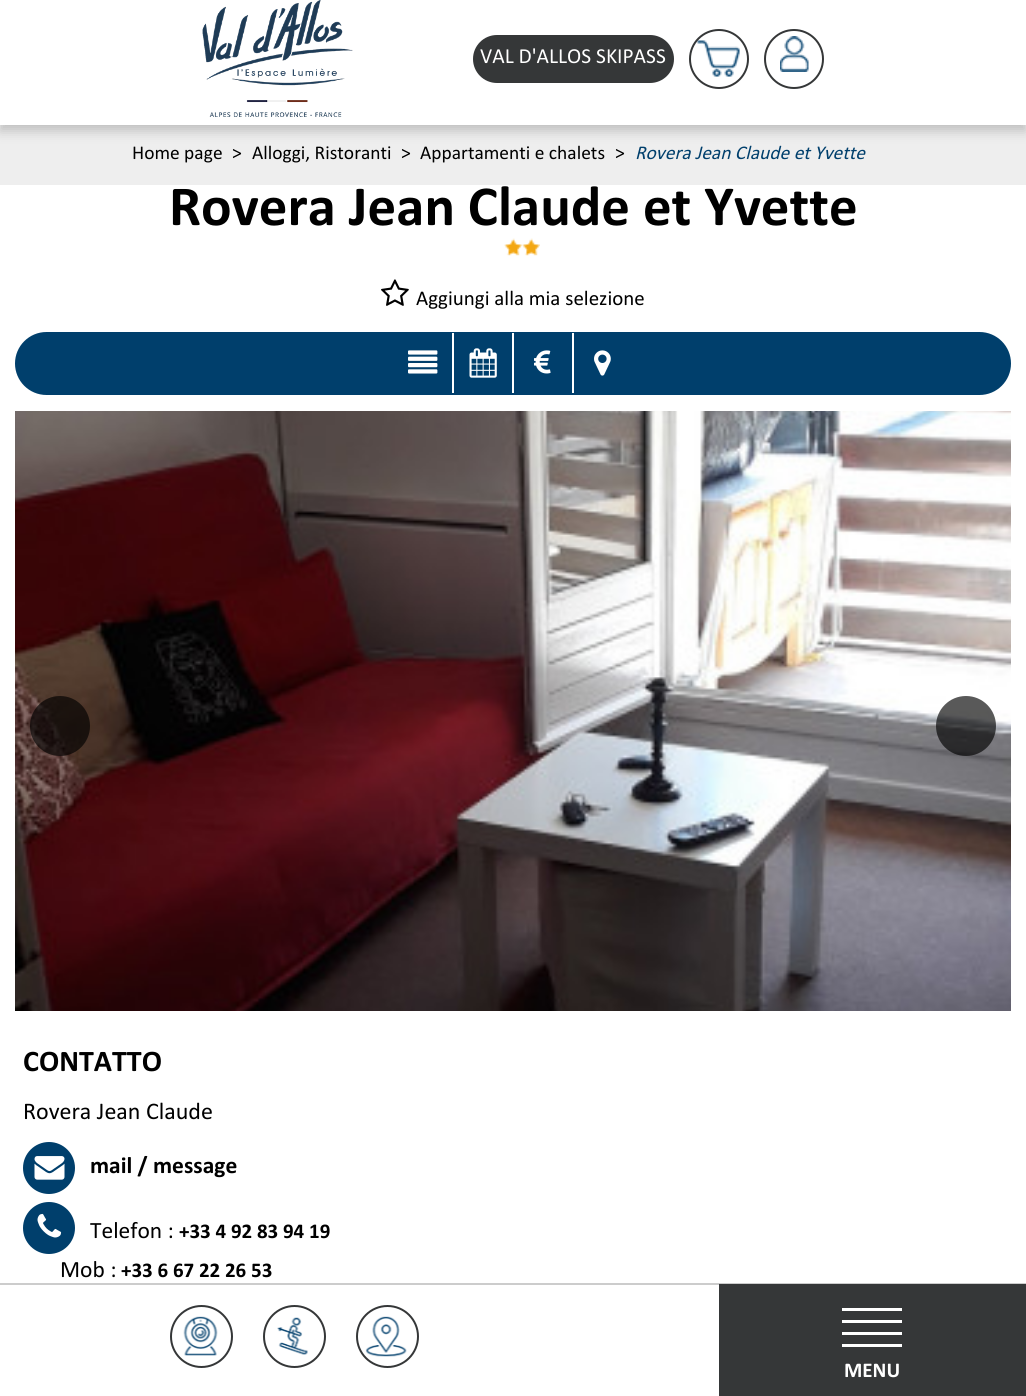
#include <cairo.h>
#include <math.h>
#include <stddef.h>


static void set_color(cairo_t *cr, unsigned color) {
    cairo_set_source_rgb(cr, (color >> 16) / 255.0, (color >> 8 & 255) / 255.0, (color & 255) / 255.0);
}

static void draw_text(cairo_t *cr, double x, double y, const char *s, const char *family, double size, int italic, int bold, unsigned color) {
    cairo_select_font_face(cr, family, italic ? CAIRO_FONT_SLANT_ITALIC : CAIRO_FONT_SLANT_NORMAL,
        bold ? CAIRO_FONT_WEIGHT_BOLD : CAIRO_FONT_WEIGHT_NORMAL);
    cairo_set_font_size(cr, size);
    set_color(cr, color);
    cairo_move_to(cr, x, y);
    cairo_show_text(cr, s);
}

static void fill_rect(cairo_t *cr, double x, double y, double w, double h, unsigned color) {
    set_color(cr, color);
    cairo_rectangle(cr, x, y, w, h);
    cairo_fill(cr);
}

static void rounded_rect(cairo_t *cr, double x, double y, double w, double h, double r) {
    cairo_new_sub_path(cr);
    cairo_arc(cr, x + w - r, y + h - r, r, 0, M_PI / 2);
    cairo_arc(cr, x + r, y + h - r, r, M_PI / 2, M_PI);
    cairo_arc(cr, x + r, y + r, r, M_PI, 1.5 * M_PI);
    cairo_arc(cr, x + w - r, y + r, r, 1.5 * M_PI, 2 * M_PI);
    cairo_close_path(cr);
}

static void draw_shadow(cairo_t *cr, double x, double y, double w, double h, double r, double blur, double alpha) {
    cairo_push_group_with_content(cr, CAIRO_CONTENT_ALPHA);
    cairo_set_operator(cr, CAIRO_OPERATOR_SOURCE);
    for (int i = 15; i >= -15 && fmin(w, h) + blur * i / 3 > 0; i -= 2) {
        double e = blur * i / 6;
        cairo_set_source_rgba(cr, 0, 0, 0, alpha * erfc((i - 1) / 8.5) / 2);
        rounded_rect(cr, x - e, y - e, w + 2 * e, h + 2 * e, fmax(0, fmin(r + e + blur * .6, fmin(w, h) / 2 + e)));
        cairo_fill(cr);
    }
    cairo_pattern_t *soft = cairo_pop_group(cr);
    cairo_mask(cr, soft);
    cairo_pattern_destroy(soft);
}

static void draw_image(cairo_t *cr, const char *path, double x, double y, double w, double h) {
    cairo_surface_t *image = cairo_image_surface_create_from_png(path);
    cairo_save(cr);
    cairo_set_source_surface(cr, image, x, y);
    cairo_rectangle(cr, x, y, w, h);
    cairo_fill(cr);
    cairo_restore(cr);
    cairo_surface_destroy(image);
}

int main(void) {
    cairo_surface_t *surface = cairo_image_surface_create(CAIRO_FORMAT_RGB24, 1026, 1396);
    cairo_t *cr = cairo_create(surface);
    cairo_font_options_t *options = cairo_font_options_create();
    cairo_font_options_set_hint_metrics(options, CAIRO_HINT_METRICS_OFF);
    cairo_font_options_set_hint_style(options, CAIRO_HINT_STYLE_NONE);
    cairo_set_font_options(cr, options);
    cairo_set_miter_limit(cr, 4);
    set_color(cr, 0xFFFFFF);
    cairo_paint(cr);
    fill_rect(cr, 0, 125, 1026, 60, 0xEEEEEE);
    set_color(cr, 0x000000);
    draw_shadow(cr, 0, 6, 1026, 125, 0, 6, 0.2);
    fill_rect(cr, 0, 0, 1026, 125, 0xFFFFFF);
    draw_image(cr, "assets/img1.png", 202, 0, 151, 117);
    set_color(cr, 0x353738);
    rounded_rect(cr, 473, 35, 201, 48, 24);
    cairo_fill(cr);
    draw_text(cr, 480, 63, "VAL D'ALLOS SKIPASS", "Calibri", 21.5, 0, 0, 0xFFFFFF);
    cairo_new_path(cr);
    cairo_arc(cr, 719, 59, 29, 0, 2 * M_PI);
    set_color(cr, 0x353738);
    cairo_stroke(cr);
    draw_image(cr, "assets/img2.png", 697, 40, 43, 37);
    cairo_arc(cr, 794, 59, 29, 0, 2 * M_PI);
    cairo_stroke(cr);
    draw_image(cr, "assets/img3.png", 780, 36, 29, 36);
    fill_rect(cr, 0, 1283, 1026, 2, 0xCCCCCC);
    draw_image(cr, "assets/img4.png", 183, 1316, 35, 40);
    cairo_arc(cr, 201.5, 1336.5, 30.5, 0, 2 * M_PI);
    set_color(cr, 0x353738);
    cairo_stroke(cr);
    draw_image(cr, "assets/img5.png", 277, 1317, 31, 38);
    cairo_arc(cr, 294.5, 1336.5, 30.5, 0, 2 * M_PI);
    cairo_stroke(cr);
    draw_image(cr, "assets/img6.png", 365, 1316, 42, 41);
    cairo_arc(cr, 387.5, 1336.5, 30.5, 0, 2 * M_PI);
    cairo_stroke(cr);
    fill_rect(cr, 719, 1284, 307, 112, 0x353738);
    fill_rect(cr, 842, 1308, 60, 3, 0xFFFFFF);
    fill_rect(cr, 842, 1320, 60, 3, 0xFFFFFF);
    fill_rect(cr, 842, 1332, 60, 3, 0xFFFFFF);
    fill_rect(cr, 842, 1344, 60, 3, 0xFFFFFF);
    draw_text(cr, 844, 1377, "MENU", "Calibri", 21, 0, 1, 0xFFFFFF);
    draw_text(cr, 132, 159, "Home page", "Calibri", 19.5, 0, 0, 0x000000);
    draw_text(cr, 232, 159, ">", "Calibri", 19.5, 0, 0, 0x000000);
    draw_text(cr, 252, 159, "Alloggi, Ristoranti", "Calibri", 19.5, 0, 0, 0x000000);
    draw_text(cr, 401, 159, ">", "Calibri", 19.5, 0, 0, 0x000000);
    draw_text(cr, 420, 159, "Appartamenti e chalets", "Calibri", 19.5, 0, 0, 0x000000);
    draw_text(cr, 615, 159, ">", "Calibri", 19.5, 0, 0, 0x000000);
    draw_text(cr, 635, 159, "Rovera Jean Claude et Yvette", "Calibri", 19.5, 1, 0, 0x003F6C);
    draw_text(cr, 169, 225, "Rovera Jean Claude et Yvette", "Calibri", 57, 0, 1, 0x000000);
    draw_image(cr, "assets/img7.png", 504, 238, 36, 18);
    draw_image(cr, "assets/img8.png", 381, 279, 28, 27);
    draw_text(cr, 416, 305, "Aggiungi alla mia selezione", "Calibri", 21, 0, 0, 0x000000);
    set_color(cr, 0x003F6C);
    rounded_rect(cr, 16, 333, 994, 61, 30.5);
    cairo_fill_preserve(cr);
    cairo_stroke(cr);
    fill_rect(cr, 452, 333, 2, 60, 0xFFFFFF);
    draw_image(cr, "assets/img9.png", 408, 350, 30, 24);
    fill_rect(cr, 512, 333, 2, 60, 0xFFFFFF);
    draw_image(cr, "assets/img10.png", 469, 348, 28, 30);
    fill_rect(cr, 572, 333, 2, 60, 0xFFFFFF);
    draw_image(cr, "assets/img11.png", 534, 350, 17, 24);
    draw_image(cr, "assets/img12.png", 594, 350, 17, 26);
    draw_image(cr, "assets/img13.png", 15, 411, 996, 600);
    cairo_set_source_rgba(cr, 0, 0, 0, 0.65);
    cairo_arc(cr, 60, 726, 30, 0, 2 * M_PI);
    cairo_fill(cr);
    cairo_arc(cr, 966, 726, 30, 0, 2 * M_PI);
    cairo_fill(cr);
    draw_text(cr, 23, 1071, "CONTATTO", "Calibri", 30, 0, 1, 0x000000);
    draw_text(cr, 23, 1119, "Rovera Jean Claude", "Calibri", 24, 0, 0, 0x000000);
    set_color(cr, 0x003F6C);
    cairo_new_path(cr);
    cairo_arc(cr, 49, 1168, 26, 0, 2 * M_PI);
    cairo_fill(cr);
    draw_image(cr, "assets/img14.png", 34, 1156, 31, 24);
    draw_text(cr, 90, 1173, "mail / message", "Calibri", 23.5, 0, 1, 0x000000);
    set_color(cr, 0x003F6C);
    cairo_new_path(cr);
    cairo_arc(cr, 49, 1228, 26, 0, 2 * M_PI);
    cairo_fill(cr);
    draw_image(cr, "assets/img15.png", 37, 1213, 25, 25);
    draw_text(cr, 90, 1238, "Telefon :", "Calibri", 23.5, 0, 0, 0x000000);
    draw_text(cr, 179, 1238, "+33 4 92 83 94 19", "Calibri", 21, 0, 1, 0x000000);
    draw_text(cr, 60, 1277, "Mob :", "Calibri", 23.5, 0, 0, 0x000000);
    draw_text(cr, 121, 1277, "+33 6 67 22 26 53", "Calibri", 21, 0, 1, 0x000000);
    cairo_surface_write_to_png(surface, "output.png");
    cairo_font_options_destroy(options);
    cairo_destroy(cr);
    cairo_surface_destroy(surface);
    return 0;
}
